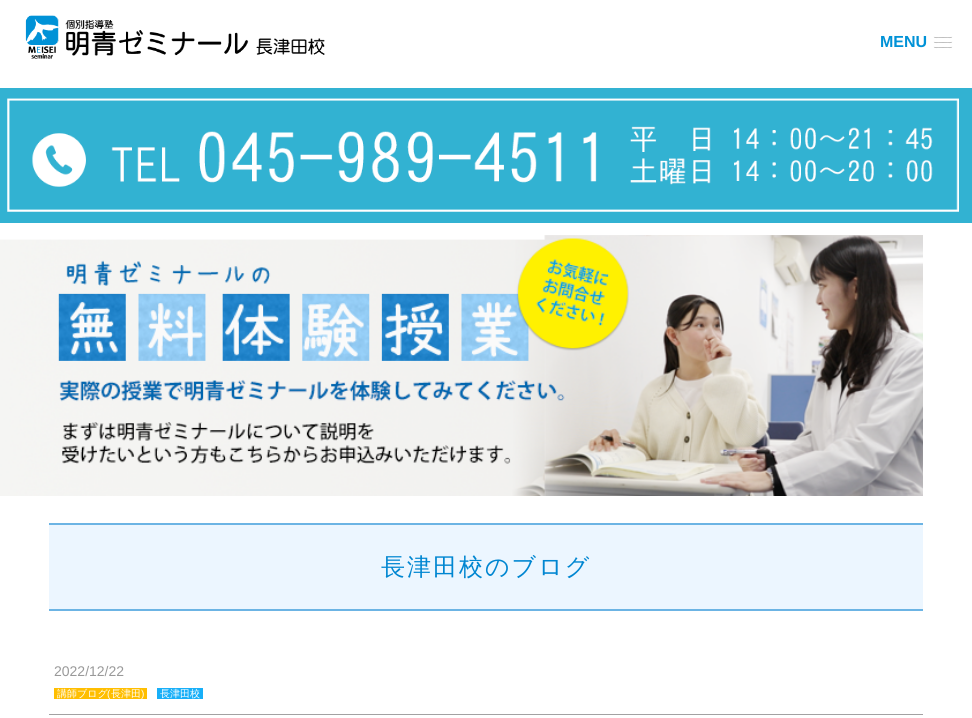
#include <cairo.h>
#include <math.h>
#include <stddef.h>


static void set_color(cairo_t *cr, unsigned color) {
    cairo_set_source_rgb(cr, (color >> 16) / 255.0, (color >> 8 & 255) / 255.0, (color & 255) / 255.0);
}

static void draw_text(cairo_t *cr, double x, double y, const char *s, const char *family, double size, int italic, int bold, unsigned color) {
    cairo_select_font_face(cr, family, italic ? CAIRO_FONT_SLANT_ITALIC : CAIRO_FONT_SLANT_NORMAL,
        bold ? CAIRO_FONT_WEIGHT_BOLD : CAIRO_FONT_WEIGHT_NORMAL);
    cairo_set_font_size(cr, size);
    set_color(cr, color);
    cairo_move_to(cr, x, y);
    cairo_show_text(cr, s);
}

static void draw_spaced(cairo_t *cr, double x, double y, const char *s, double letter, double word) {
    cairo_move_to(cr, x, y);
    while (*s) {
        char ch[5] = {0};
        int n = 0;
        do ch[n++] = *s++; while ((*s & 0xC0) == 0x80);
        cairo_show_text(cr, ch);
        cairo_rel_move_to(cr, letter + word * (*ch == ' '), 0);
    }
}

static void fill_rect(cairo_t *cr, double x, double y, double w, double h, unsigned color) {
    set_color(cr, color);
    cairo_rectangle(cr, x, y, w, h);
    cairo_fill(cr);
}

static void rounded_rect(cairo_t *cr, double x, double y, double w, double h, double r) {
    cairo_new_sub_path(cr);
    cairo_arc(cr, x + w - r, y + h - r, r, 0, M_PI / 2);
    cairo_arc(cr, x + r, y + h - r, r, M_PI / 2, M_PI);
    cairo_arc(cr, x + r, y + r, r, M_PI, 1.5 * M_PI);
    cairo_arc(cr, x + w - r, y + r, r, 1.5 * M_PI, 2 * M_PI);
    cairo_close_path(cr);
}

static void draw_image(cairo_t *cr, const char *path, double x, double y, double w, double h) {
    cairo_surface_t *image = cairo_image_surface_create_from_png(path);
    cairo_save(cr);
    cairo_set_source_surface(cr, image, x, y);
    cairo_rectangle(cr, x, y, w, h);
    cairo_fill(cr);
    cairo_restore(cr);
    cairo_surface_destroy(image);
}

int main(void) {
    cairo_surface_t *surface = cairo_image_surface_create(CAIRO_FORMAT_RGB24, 972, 718);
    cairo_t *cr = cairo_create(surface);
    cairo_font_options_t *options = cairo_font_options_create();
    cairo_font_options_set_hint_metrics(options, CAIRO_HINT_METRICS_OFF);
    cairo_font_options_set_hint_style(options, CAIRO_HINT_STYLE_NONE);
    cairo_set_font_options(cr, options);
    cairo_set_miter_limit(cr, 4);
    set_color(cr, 0xFFFFFF);
    cairo_paint(cr);
    draw_image(cr, "assets/img1.png", 25, 15, 300, 44);
    draw_text(cr, 880, 47, "MENU", "Liberation Sans", 16, 0, 1, 0x0092D7);
    set_color(cr, 0xBFBFBF);
    cairo_new_path(cr);
    cairo_move_to(cr, 934, 36.5);
    cairo_curve_to(cr, 933, 38.5, 937.5, 38, 937.5, 38);
    cairo_line_to(cr, 948.5, 38);
    cairo_curve_to(cr, 948.5, 38, 953, 38.5, 952, 36.5);
    cairo_curve_to(cr, 951, 37.5, 944.5, 37, 943, 37);
    cairo_curve_to(cr, 941.5, 37, 935, 37.5, 934, 36.5);
    cairo_close_path(cr);
    cairo_fill(cr);
    set_color(cr, 0xFFFFFF);
    rounded_rect(cr, 934, 35, 18, 2, 1);
    cairo_fill(cr);
    set_color(cr, 0xBFBFBF);
    cairo_new_path(cr);
    cairo_move_to(cr, 934, 41.5);
    cairo_curve_to(cr, 933, 43.5, 937.5, 43, 937.5, 43);
    cairo_line_to(cr, 948.5, 43);
    cairo_curve_to(cr, 948.5, 43, 953, 43.5, 952, 41.5);
    cairo_curve_to(cr, 951, 42.5, 944.5, 42, 943, 42);
    cairo_curve_to(cr, 941.5, 42, 935, 42.5, 934, 41.5);
    cairo_close_path(cr);
    cairo_fill(cr);
    set_color(cr, 0xFFFFFF);
    rounded_rect(cr, 934, 40, 18, 2, 1);
    cairo_fill(cr);
    set_color(cr, 0xBFBFBF);
    cairo_new_path(cr);
    cairo_move_to(cr, 934, 46.5);
    cairo_curve_to(cr, 933, 48.5, 937.5, 48, 937.5, 48);
    cairo_line_to(cr, 948.5, 48);
    cairo_curve_to(cr, 948.5, 48, 953, 48.5, 952, 46.5);
    cairo_curve_to(cr, 951, 47.5, 944.5, 47, 943, 47);
    cairo_curve_to(cr, 941.5, 47, 935, 47.5, 934, 46.5);
    cairo_close_path(cr);
    cairo_fill(cr);
    set_color(cr, 0xFFFFFF);
    rounded_rect(cr, 934, 45, 18, 2, 1);
    cairo_fill(cr);
    draw_image(cr, "assets/img2.png", 0, 88, 972, 135);
    draw_image(cr, "assets/img3.png", 0, 235, 923, 261);
    fill_rect(cr, 49, 525, 874, 84, 0xECF6FF);
    fill_rect(cr, 49, 523, 874, 2, 0x6CB4E4);
    fill_rect(cr, 49, 609, 874, 2, 0x6CB4E4);
    cairo_select_font_face(cr, "WenQuanYi Zen Hei Medium", CAIRO_FONT_SLANT_NORMAL, CAIRO_FONT_WEIGHT_NORMAL);
    cairo_set_font_size(cr, 24);
    set_color(cr, 0x0086D1);
    draw_spaced(cr, 381, 575, "長津田校のブログ", 2, 0);
    fill_rect(cr, 49, 714, 874, 1, 0xA3A1A2);
    draw_text(cr, 54, 676, "2022/12/22", "Liberation Sans", 14, 0, 0, 0x999999);
    fill_rect(cr, 54, 688, 93, 11, 0xFFBE00);
    draw_text(cr, 57, 697, "講師ブログ", "WenQuanYi Zen Hei Medium", 10, 0, 0, 0xFFFFFF);
    draw_text(cr, 107, 697, "(", "Liberation Sans", 10, 0, 0, 0xFFFFFF);
    draw_text(cr, 111, 697, "長津田", "WenQuanYi Zen Hei Medium", 10, 0, 0, 0xFFFFFF);
    draw_text(cr, 141, 697, ")", "Liberation Sans", 10, 0, 0, 0xFFFFFF);
    fill_rect(cr, 157, 688, 46, 11, 0x18AFF8);
    draw_text(cr, 160, 697, "長津田校", "WenQuanYi Zen Hei Medium", 10, 0, 0, 0xFFFFFF);
    cairo_surface_write_to_png(surface, "output.png");
    cairo_font_options_destroy(options);
    cairo_destroy(cr);
    cairo_surface_destroy(surface);
    return 0;
}
